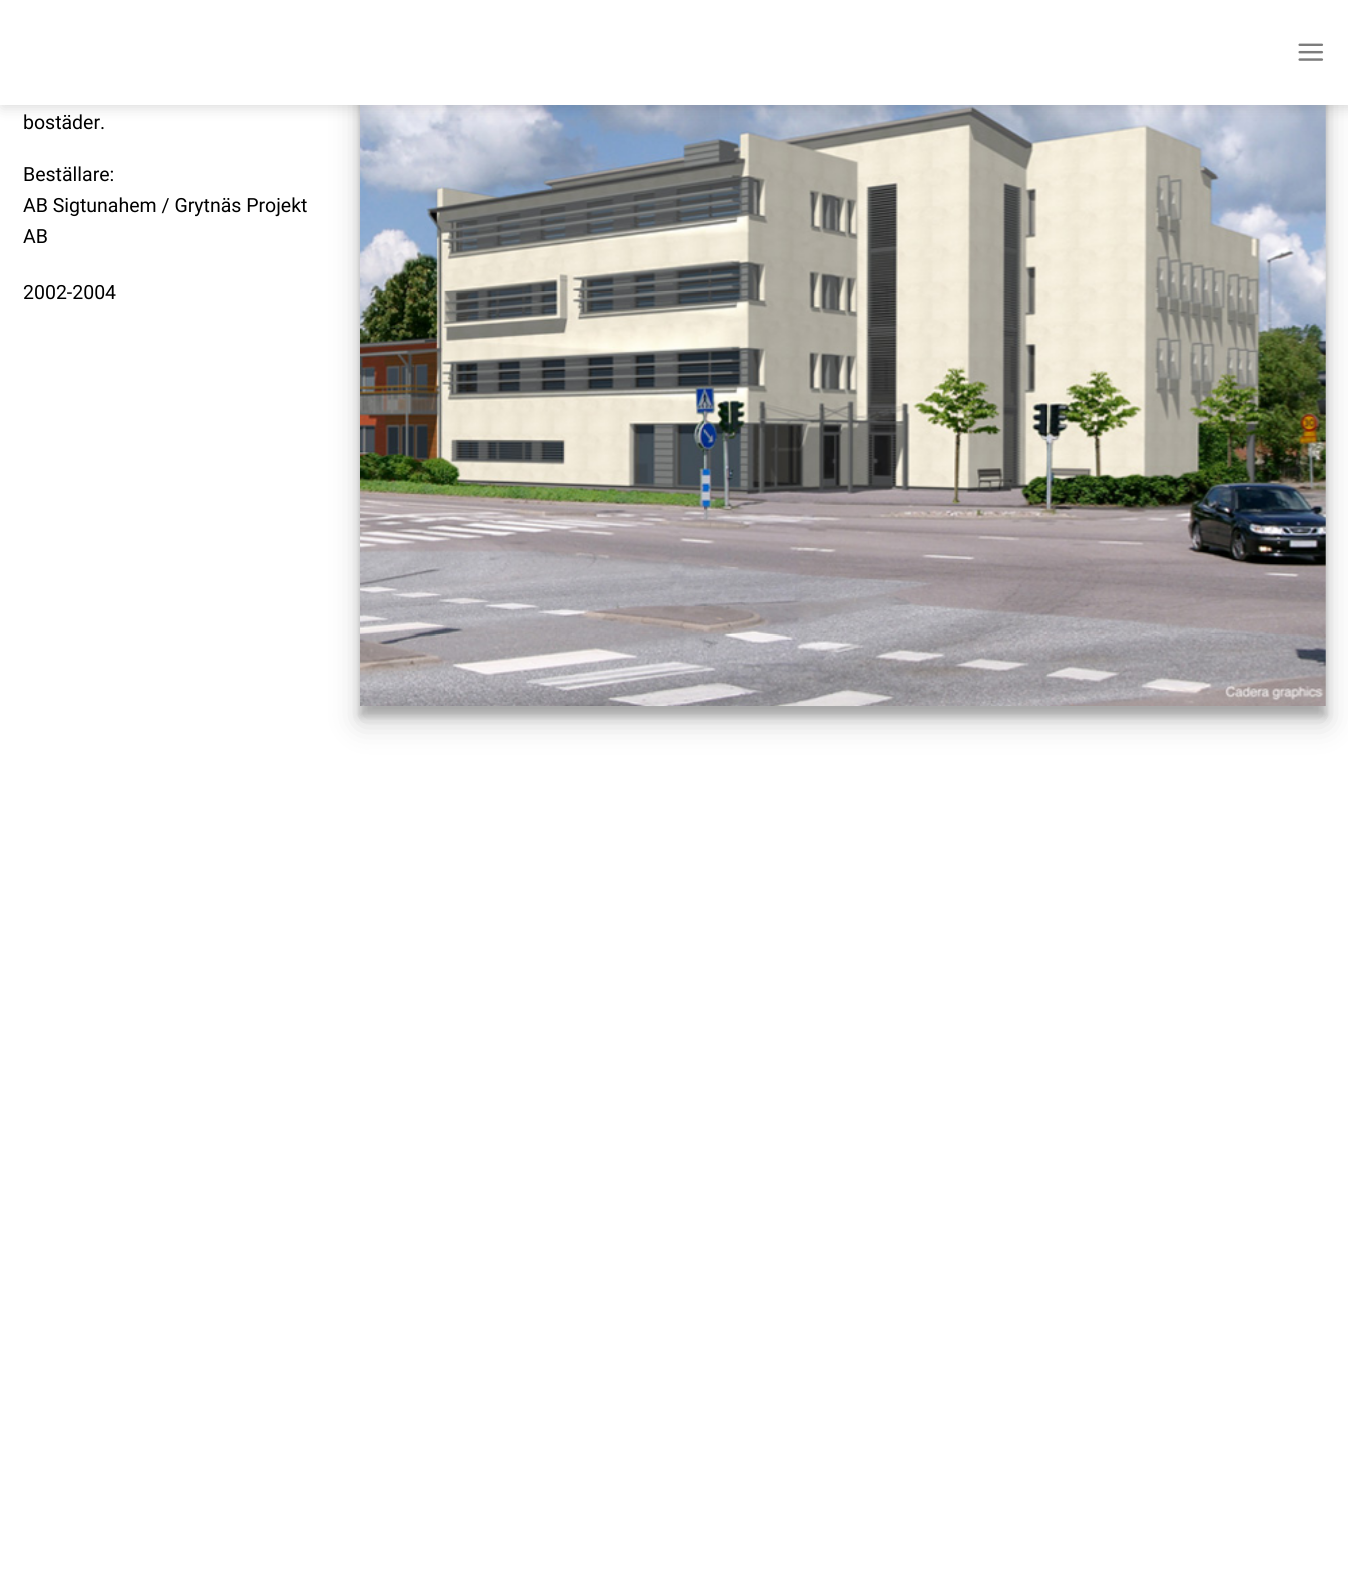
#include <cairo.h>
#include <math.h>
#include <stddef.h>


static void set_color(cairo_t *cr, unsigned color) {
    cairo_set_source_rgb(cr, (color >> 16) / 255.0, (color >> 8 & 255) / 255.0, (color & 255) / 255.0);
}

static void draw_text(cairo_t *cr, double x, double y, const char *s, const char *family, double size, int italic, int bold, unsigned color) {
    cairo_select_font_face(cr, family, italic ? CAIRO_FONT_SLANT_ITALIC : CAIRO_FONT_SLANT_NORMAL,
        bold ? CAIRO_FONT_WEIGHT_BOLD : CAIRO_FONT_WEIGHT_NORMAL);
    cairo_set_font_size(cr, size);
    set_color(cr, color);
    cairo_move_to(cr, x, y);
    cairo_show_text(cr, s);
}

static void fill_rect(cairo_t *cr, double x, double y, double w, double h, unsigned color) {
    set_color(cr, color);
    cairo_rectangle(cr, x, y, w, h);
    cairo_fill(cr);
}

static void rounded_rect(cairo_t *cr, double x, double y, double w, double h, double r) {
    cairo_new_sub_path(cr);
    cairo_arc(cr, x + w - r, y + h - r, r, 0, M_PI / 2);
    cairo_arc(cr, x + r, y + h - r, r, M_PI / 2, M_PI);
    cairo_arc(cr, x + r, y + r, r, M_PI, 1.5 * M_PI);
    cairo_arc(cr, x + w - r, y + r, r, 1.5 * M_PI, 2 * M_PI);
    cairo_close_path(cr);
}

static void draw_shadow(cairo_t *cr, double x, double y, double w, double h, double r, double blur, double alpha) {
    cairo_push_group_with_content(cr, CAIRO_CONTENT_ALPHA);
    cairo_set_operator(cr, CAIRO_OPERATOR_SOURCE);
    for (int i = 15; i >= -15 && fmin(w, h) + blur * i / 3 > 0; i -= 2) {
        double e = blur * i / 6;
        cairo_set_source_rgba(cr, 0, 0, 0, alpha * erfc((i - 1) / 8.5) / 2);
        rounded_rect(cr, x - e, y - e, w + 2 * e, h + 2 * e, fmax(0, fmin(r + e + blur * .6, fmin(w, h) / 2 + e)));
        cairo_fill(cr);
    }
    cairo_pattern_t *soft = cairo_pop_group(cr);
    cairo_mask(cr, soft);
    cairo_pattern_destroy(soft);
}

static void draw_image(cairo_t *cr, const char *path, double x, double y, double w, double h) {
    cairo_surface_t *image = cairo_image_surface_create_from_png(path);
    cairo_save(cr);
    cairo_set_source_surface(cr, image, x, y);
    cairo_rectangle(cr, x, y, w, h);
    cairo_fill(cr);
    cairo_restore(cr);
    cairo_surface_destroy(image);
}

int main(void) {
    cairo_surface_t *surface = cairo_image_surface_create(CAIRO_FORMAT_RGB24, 1348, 1577);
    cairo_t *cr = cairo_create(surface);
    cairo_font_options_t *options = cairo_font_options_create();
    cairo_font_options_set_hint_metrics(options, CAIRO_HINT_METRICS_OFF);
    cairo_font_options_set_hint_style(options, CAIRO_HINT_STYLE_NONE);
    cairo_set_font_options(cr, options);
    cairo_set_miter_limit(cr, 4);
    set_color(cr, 0xFFFFFF);
    cairo_paint(cr);
    set_color(cr, 0x000000);
    draw_shadow(cr, 360, -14, 966, 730, 0, 4.5, 0.22);
    draw_shadow(cr, 360, -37, 966, 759, 0, 15, 0.19);
    draw_image(cr, "assets/img2.png", 360, 105, 966, 601);
    draw_shadow(cr, 2, 2, 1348, 105, 0, 7.5, 0.15);
    fill_rect(cr, 0, 0, 1348, 105, 0xFFFFFF);
    draw_image(cr, "assets/img1.png", 1298, 43, 26, 18);
    draw_text(cr, 23, 129, "bostäder.", "Roboto", 19.5, 0, 0, 0x000000);
    draw_text(cr, 23, 181, "Beställare:", "Roboto", 19.5, 0, 0, 0x000000);
    draw_text(cr, 23, 212, "AB Sigtunahem / Grytnäs Projekt", "Roboto", 19.5, 0, 0, 0x000000);
    draw_text(cr, 23, 243, "AB", "Roboto", 19.5, 0, 0, 0x000000);
    draw_text(cr, 23, 299, "2002-2004", "Roboto", 19.5, 0, 0, 0x000000);
    cairo_surface_write_to_png(surface, "output.png");
    cairo_font_options_destroy(options);
    cairo_destroy(cr);
    cairo_surface_destroy(surface);
    return 0;
}
